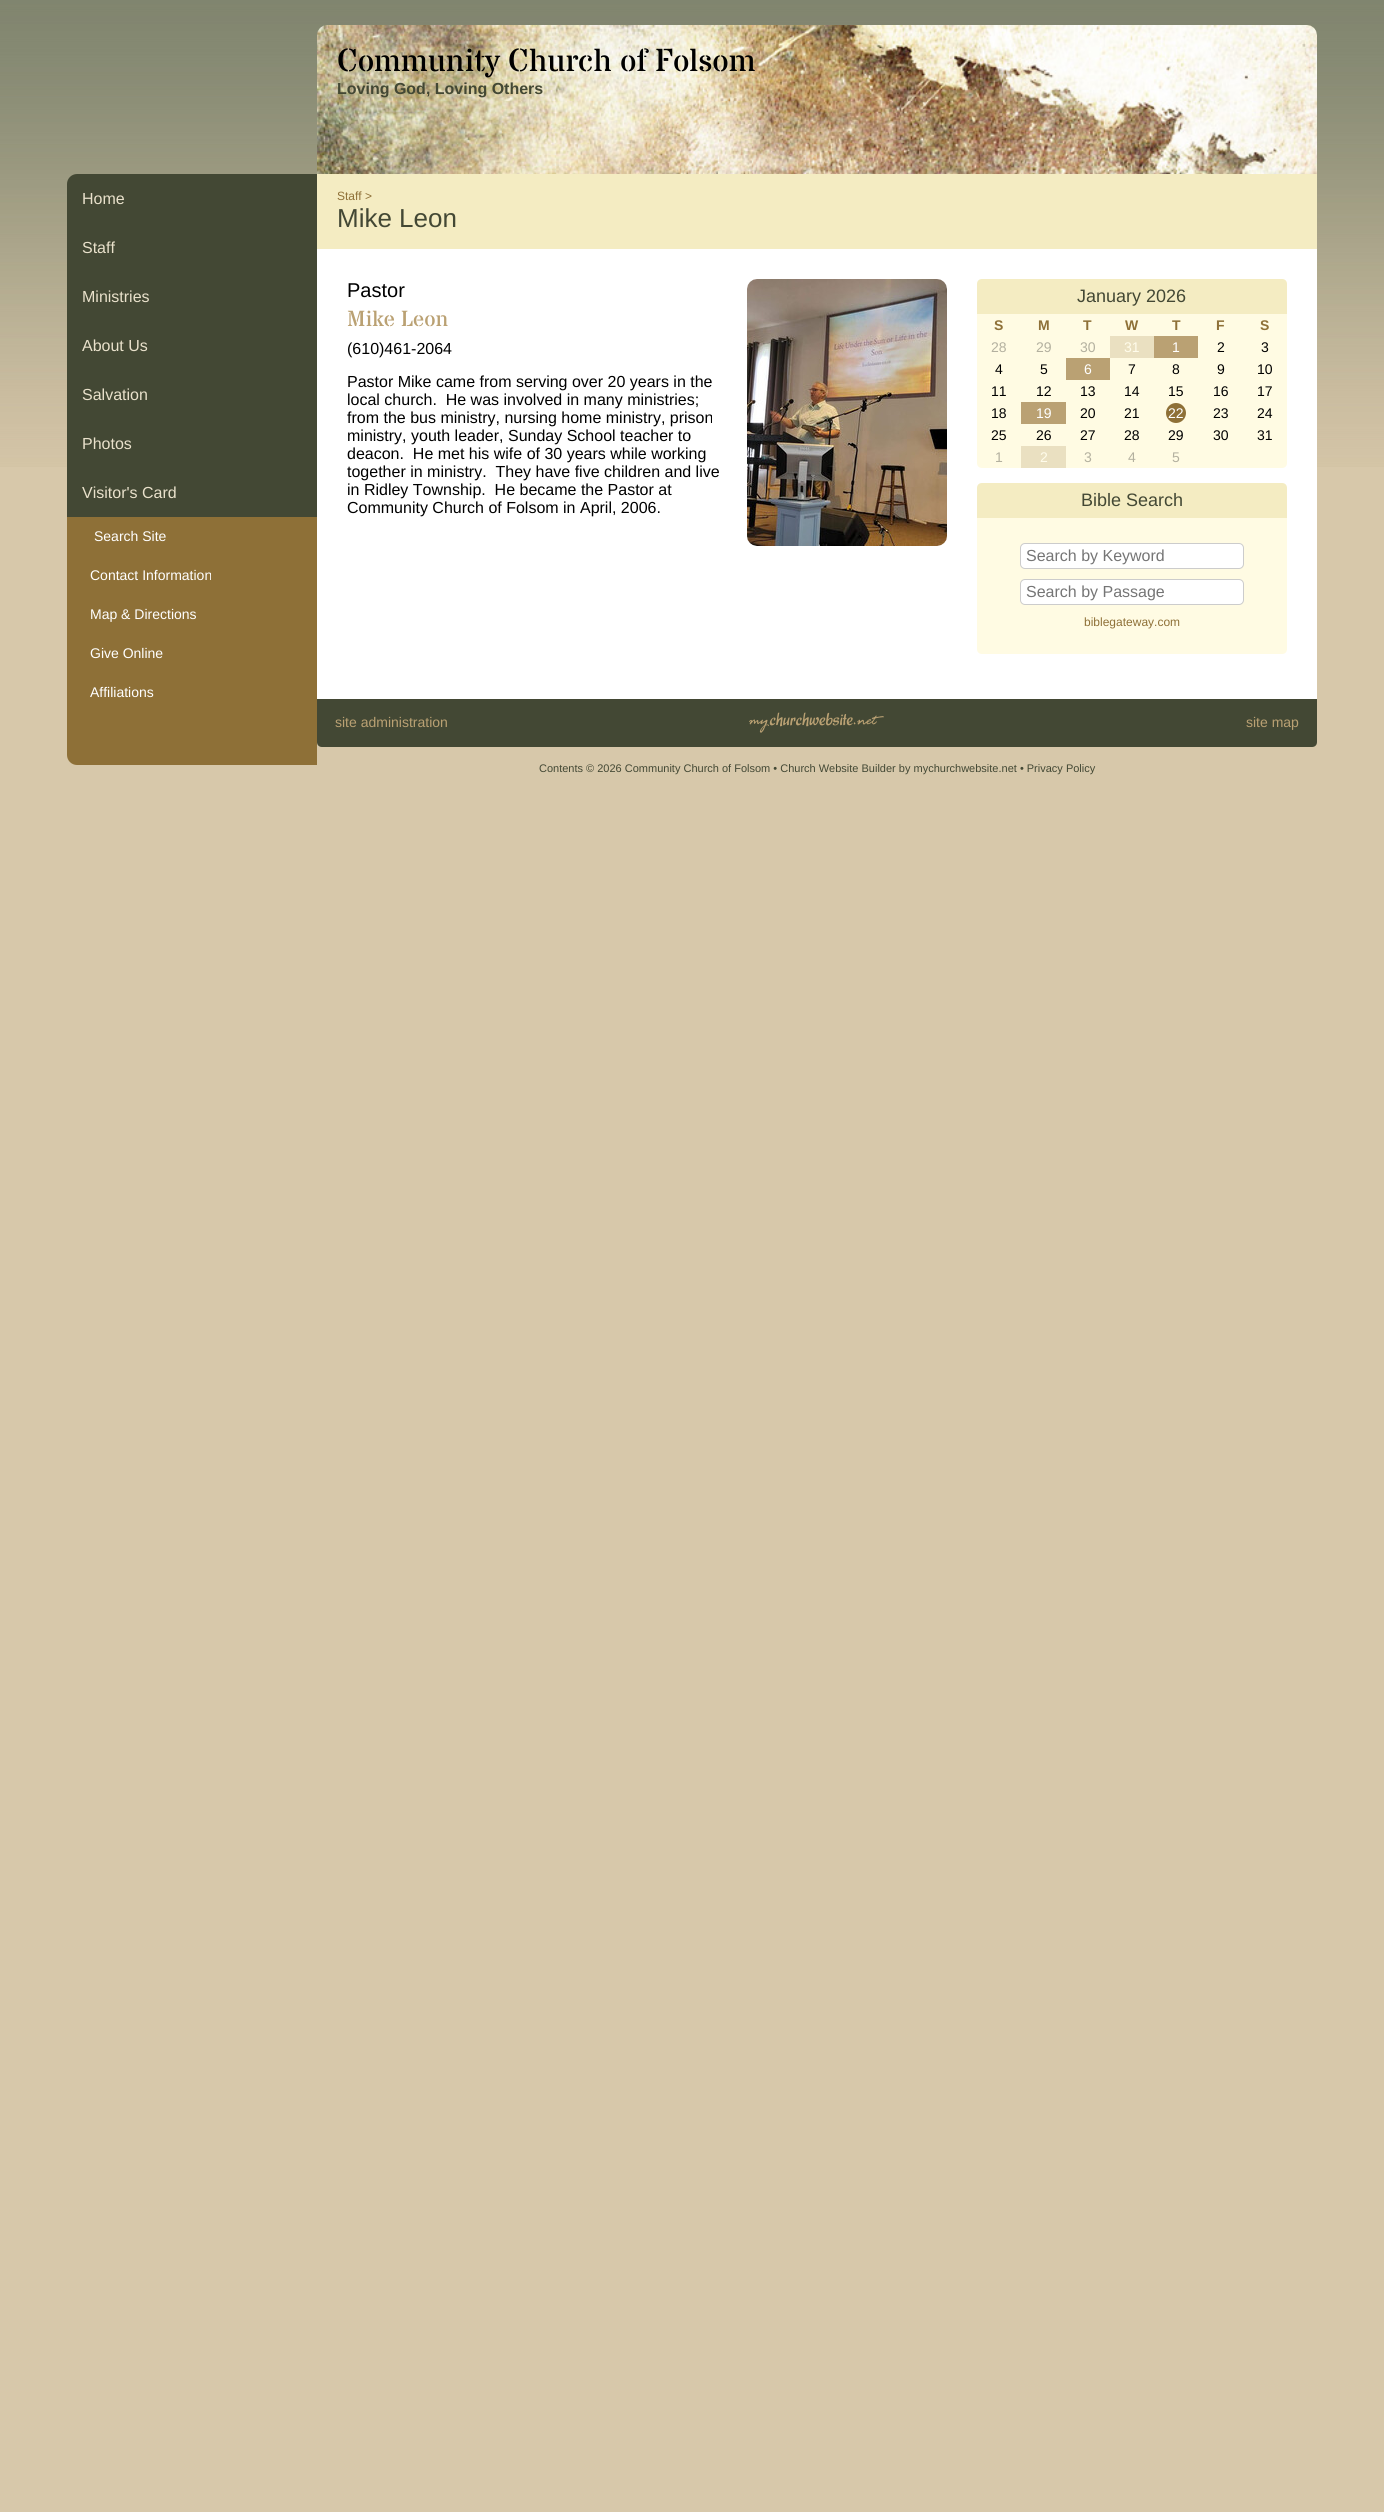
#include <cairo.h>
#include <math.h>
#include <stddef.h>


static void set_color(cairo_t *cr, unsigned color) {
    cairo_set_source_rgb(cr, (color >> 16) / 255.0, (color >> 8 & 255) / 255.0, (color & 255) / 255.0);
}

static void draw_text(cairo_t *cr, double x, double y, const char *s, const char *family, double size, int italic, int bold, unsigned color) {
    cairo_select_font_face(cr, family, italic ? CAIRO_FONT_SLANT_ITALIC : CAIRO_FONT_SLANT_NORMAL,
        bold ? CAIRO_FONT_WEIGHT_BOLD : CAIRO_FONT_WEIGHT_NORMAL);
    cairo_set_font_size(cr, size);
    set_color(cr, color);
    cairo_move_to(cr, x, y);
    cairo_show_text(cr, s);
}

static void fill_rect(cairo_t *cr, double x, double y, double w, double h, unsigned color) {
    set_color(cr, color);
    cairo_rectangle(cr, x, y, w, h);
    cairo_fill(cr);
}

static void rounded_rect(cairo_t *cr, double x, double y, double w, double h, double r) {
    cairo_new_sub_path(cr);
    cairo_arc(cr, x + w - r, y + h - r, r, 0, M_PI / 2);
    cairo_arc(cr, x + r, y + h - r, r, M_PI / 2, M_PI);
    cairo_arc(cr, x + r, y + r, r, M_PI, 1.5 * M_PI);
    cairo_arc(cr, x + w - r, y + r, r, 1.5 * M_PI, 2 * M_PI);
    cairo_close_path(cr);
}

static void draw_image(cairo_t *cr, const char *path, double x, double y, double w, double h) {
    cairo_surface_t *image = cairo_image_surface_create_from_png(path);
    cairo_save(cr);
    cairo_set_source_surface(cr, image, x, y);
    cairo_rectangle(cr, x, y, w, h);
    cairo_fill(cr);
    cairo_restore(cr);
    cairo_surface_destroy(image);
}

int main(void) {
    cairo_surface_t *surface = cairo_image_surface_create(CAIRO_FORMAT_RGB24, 1384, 2512);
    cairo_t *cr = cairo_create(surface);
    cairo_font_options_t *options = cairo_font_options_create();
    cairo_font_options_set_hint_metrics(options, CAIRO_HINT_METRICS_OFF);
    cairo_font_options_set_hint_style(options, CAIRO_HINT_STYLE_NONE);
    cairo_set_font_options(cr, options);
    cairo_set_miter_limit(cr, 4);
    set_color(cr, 0xD7C8AA);
    cairo_paint(cr);
    draw_image(cr, "assets/img1.png", 0, 0, 1384, 467);
    draw_image(cr, "assets/img2.png", 317, 25, 1000, 149);
    draw_text(cr, 337, 71, "Community Church of Folsom", "Stardos Stencil", 32, 0, 0, 0x000000);
    draw_text(cr, 337, 94, "Loving God, Loving Others", "Liberation Sans", 16, 0, 1, 0x434834);
    cairo_new_path(cr);
    cairo_move_to(cr, 77, 174);
    cairo_line_to(cr, 317, 174);
    cairo_line_to(cr, 317, 223);
    cairo_line_to(cr, 67, 223);
    cairo_line_to(cr, 67, 184);
    cairo_curve_to(cr, 67, 178.5, 71.5, 174, 77, 174);
    cairo_close_path(cr);
    cairo_fill(cr);
    draw_text(cr, 82, 204, "Home", "Liberation Sans", 16, 0, 0, 0xE9E1CB);
    fill_rect(cr, 67, 223, 250, 294, 0x434834);
    draw_text(cr, 82, 253, "Staff", "Liberation Sans", 16, 0, 0, 0xE9E1CB);
    draw_text(cr, 82, 302, "Ministries", "Liberation Sans", 16, 0, 0, 0xE9E1CB);
    draw_text(cr, 82, 351, "About Us", "Liberation Sans", 16, 0, 0, 0xE9E1CB);
    draw_text(cr, 82, 400, "Salvation", "Liberation Sans", 16, 0, 0, 0xE9E1CB);
    draw_text(cr, 82, 449, "Photos", "Liberation Sans", 16, 0, 0, 0xE9E1CB);
    draw_text(cr, 82, 498, "Visitor's Card", "Liberation Sans", 16, 0, 0, 0xE9E1CB);
    fill_rect(cr, 67, 517, 250, 195, 0x8E7037);
    draw_text(cr, 94, 541, "Search Site", "Liberation Sans", 14, 0, 0, 0xFFFFFF);
    draw_text(cr, 90, 580, "Contact Information", "Liberation Sans", 14, 0, 0, 0xFFFFFF);
    draw_text(cr, 90, 619, "Map & Directions", "Liberation Sans", 14, 0, 0, 0xFFFFFF);
    draw_text(cr, 90, 658, "Give Online", "Liberation Sans", 14, 0, 0, 0xFFFFFF);
    draw_text(cr, 90, 697, "Affiliations", "Liberation Sans", 14, 0, 0, 0xFFFFFF);
    set_color(cr, 0x8E7037);
    cairo_new_path(cr);
    cairo_move_to(cr, 67, 712);
    cairo_line_to(cr, 317, 712);
    cairo_line_to(cr, 317, 765);
    cairo_line_to(cr, 77, 765);
    cairo_curve_to(cr, 71.5, 765, 67, 760.5, 67, 755);
    cairo_close_path(cr);
    cairo_fill(cr);
    fill_rect(cr, 317, 174, 1000, 75, 0xF4ECC2);
    draw_text(cr, 337, 200, "Staff >", "Liberation Sans", 12, 0, 0, 0x8E7037);
    draw_text(cr, 337, 227, "Mike Leon", "Liberation Sans", 26, 0, 0, 0x434834);
    fill_rect(cr, 317, 249, 1000, 450, 0xFFFFFF);
    draw_text(cr, 347, 297, "Pastor", "Liberation Sans", 20, 0, 0, 0x000000);
    draw_text(cr, 347, 326, "Mike Leon", "Stardos Stencil", 22, 0, 0, 0xBAA173);
    draw_text(cr, 347, 354, "(610)461-2064", "Liberation Sans", 16, 0, 0, 0x000000);
    draw_image(cr, "assets/img3.png", 747, 279, 200, 267);
    draw_text(cr, 347, 387, "Pastor Mike came from serving over 20 years in the", "Liberation Sans", 16, 0, 0, 0x000000);
    draw_text(cr, 347, 405, "local church.  He was involved in many ministries;", "Liberation Sans", 16, 0, 0, 0x000000);
    draw_text(cr, 347, 423, "from the bus ministry, nursing home ministry, prison", "Liberation Sans", 16, 0, 0, 0x000000);
    draw_text(cr, 347, 441, "ministry, youth leader, Sunday School teacher to", "Liberation Sans", 16, 0, 0, 0x000000);
    draw_text(cr, 347, 459, "deacon.  He met his wife of 30 years while working", "Liberation Sans", 16, 0, 0, 0x000000);
    draw_text(cr, 347, 477, "together in ministry.  They have five children and live", "Liberation Sans", 16, 0, 0, 0x000000);
    draw_text(cr, 347, 495, "in Ridley Township.  He became the Pastor at", "Liberation Sans", 16, 0, 0, 0x000000);
    draw_text(cr, 347, 513, "Community Church of Folsom in April, 2006.", "Liberation Sans", 16, 0, 0, 0x000000);
    set_color(cr, 0xF4ECC2);
    cairo_new_path(cr);
    cairo_move_to(cr, 982, 279);
    cairo_line_to(cr, 1282, 279);
    cairo_curve_to(cr, 1285, 279, 1287, 281, 1287, 284);
    cairo_line_to(cr, 1287, 314);
    cairo_line_to(cr, 977, 314);
    cairo_line_to(cr, 977, 284);
    cairo_curve_to(cr, 977, 281, 979, 279, 982, 279);
    cairo_close_path(cr);
    cairo_fill(cr);
    draw_text(cr, 1077, 302, "January 2026", "Liberation Sans", 18, 0, 0, 0x434834);
    set_color(cr, 0xFFFBE3);
    cairo_new_path(cr);
    cairo_move_to(cr, 977, 314);
    cairo_line_to(cr, 1287, 314);
    cairo_line_to(cr, 1287, 463);
    cairo_curve_to(cr, 1287, 466, 1285, 468, 1282, 468);
    cairo_line_to(cr, 982, 468);
    cairo_curve_to(cr, 979, 468, 977, 466, 977, 463);
    cairo_close_path(cr);
    cairo_fill(cr);
    draw_text(cr, 994, 330, "S", "Liberation Sans", 14, 0, 1, 0x8E7037);
    draw_text(cr, 1038, 330, "M", "Liberation Sans", 14, 0, 1, 0x8E7037);
    draw_text(cr, 1083, 330, "T", "Liberation Sans", 14, 0, 1, 0x8E7037);
    draw_text(cr, 1125, 330, "W", "Liberation Sans", 14, 0, 1, 0x8E7037);
    draw_text(cr, 1172, 330, "T", "Liberation Sans", 14, 0, 1, 0x8E7037);
    draw_text(cr, 1216, 330, "F", "Liberation Sans", 14, 0, 1, 0x8E7037);
    draw_text(cr, 1260, 330, "S", "Liberation Sans", 14, 0, 1, 0x8E7037);
    draw_text(cr, 991, 352, "28", "Liberation Sans", 14, 0, 0, 0xB3B09F);
    draw_text(cr, 1036, 352, "29", "Liberation Sans", 14, 0, 0, 0xB3B09F);
    draw_text(cr, 1080, 352, "30", "Liberation Sans", 14, 0, 0, 0xB3B09F);
    fill_rect(cr, 1110, 336, 44, 22, 0xEAE0C1);
    draw_text(cr, 1124, 352, "31", "Liberation Sans", 14, 0, 0, 0xFFFCEB);
    fill_rect(cr, 1154, 336, 44, 22, 0xBAA173);
    draw_text(cr, 1172, 352, "1", "Liberation Sans", 14, 0, 0, 0xFFFFFF);
    draw_text(cr, 1217, 352, "2", "Liberation Sans", 14, 0, 0, 0x000000);
    draw_text(cr, 1261, 352, "3", "Liberation Sans", 14, 0, 0, 0x000000);
    draw_text(cr, 995, 374, "4", "Liberation Sans", 14, 0, 0, 0x000000);
    draw_text(cr, 1040, 374, "5", "Liberation Sans", 14, 0, 0, 0x000000);
    fill_rect(cr, 1066, 358, 44, 22, 0xBAA173);
    draw_text(cr, 1084, 374, "6", "Liberation Sans", 14, 0, 0, 0xFFFFFF);
    draw_text(cr, 1128, 374, "7", "Liberation Sans", 14, 0, 0, 0x000000);
    draw_text(cr, 1172, 374, "8", "Liberation Sans", 14, 0, 0, 0x000000);
    draw_text(cr, 1217, 374, "9", "Liberation Sans", 14, 0, 0, 0x000000);
    draw_text(cr, 1257, 374, "10", "Liberation Sans", 14, 0, 0, 0x000000);
    draw_text(cr, 991, 396, "11", "Liberation Sans", 14, 0, 0, 0x000000);
    draw_text(cr, 1036, 396, "12", "Liberation Sans", 14, 0, 0, 0x000000);
    draw_text(cr, 1080, 396, "13", "Liberation Sans", 14, 0, 0, 0x000000);
    draw_text(cr, 1124, 396, "14", "Liberation Sans", 14, 0, 0, 0x000000);
    draw_text(cr, 1168, 396, "15", "Liberation Sans", 14, 0, 0, 0x000000);
    draw_text(cr, 1213, 396, "16", "Liberation Sans", 14, 0, 0, 0x000000);
    draw_text(cr, 1257, 396, "17", "Liberation Sans", 14, 0, 0, 0x000000);
    draw_text(cr, 991, 418, "18", "Liberation Sans", 14, 0, 0, 0x000000);
    fill_rect(cr, 1021, 402, 45, 22, 0xBAA173);
    draw_text(cr, 1036, 418, "19", "Liberation Sans", 14, 0, 0, 0xFFFFFF);
    draw_text(cr, 1080, 418, "20", "Liberation Sans", 14, 0, 0, 0x000000);
    draw_text(cr, 1124, 418, "21", "Liberation Sans", 14, 0, 0, 0x000000);
    set_color(cr, 0x8E7037);
    cairo_new_path(cr);
    cairo_arc(cr, 1176, 413, 10, 0, 2 * M_PI);
    cairo_fill(cr);
    draw_text(cr, 1168, 418, "22", "Liberation Sans", 14, 0, 0, 0xFFFFFF);
    draw_text(cr, 1213, 418, "23", "Liberation Sans", 14, 0, 0, 0x000000);
    draw_text(cr, 1257, 418, "24", "Liberation Sans", 14, 0, 0, 0x000000);
    draw_text(cr, 991, 440, "25", "Liberation Sans", 14, 0, 0, 0x000000);
    draw_text(cr, 1036, 440, "26", "Liberation Sans", 14, 0, 0, 0x000000);
    draw_text(cr, 1080, 440, "27", "Liberation Sans", 14, 0, 0, 0x000000);
    draw_text(cr, 1124, 440, "28", "Liberation Sans", 14, 0, 0, 0x000000);
    draw_text(cr, 1168, 440, "29", "Liberation Sans", 14, 0, 0, 0x000000);
    draw_text(cr, 1213, 440, "30", "Liberation Sans", 14, 0, 0, 0x000000);
    draw_text(cr, 1257, 440, "31", "Liberation Sans", 14, 0, 0, 0x000000);
    draw_text(cr, 995, 462, "1", "Liberation Sans", 14, 0, 0, 0xB3B09F);
    fill_rect(cr, 1021, 446, 45, 22, 0xEAE0C1);
    draw_text(cr, 1040, 462, "2", "Liberation Sans", 14, 0, 0, 0xFFFCEB);
    draw_text(cr, 1084, 462, "3", "Liberation Sans", 14, 0, 0, 0xB3B09F);
    draw_text(cr, 1128, 462, "4", "Liberation Sans", 14, 0, 0, 0xB3B09F);
    draw_text(cr, 1172, 462, "5", "Liberation Sans", 14, 0, 0, 0xB3B09F);
    set_color(cr, 0xF4ECC2);
    cairo_new_path(cr);
    cairo_move_to(cr, 982, 483);
    cairo_line_to(cr, 1282, 483);
    cairo_curve_to(cr, 1285, 483, 1287, 485, 1287, 488);
    cairo_line_to(cr, 1287, 518);
    cairo_line_to(cr, 977, 518);
    cairo_line_to(cr, 977, 488);
    cairo_curve_to(cr, 977, 485, 979, 483, 982, 483);
    cairo_close_path(cr);
    cairo_fill(cr);
    draw_text(cr, 1081, 506, "Bible Search", "Liberation Sans", 18, 0, 0, 0x434834);
    set_color(cr, 0xFFFBE3);
    cairo_new_path(cr);
    cairo_move_to(cr, 977, 518);
    cairo_line_to(cr, 1287, 518);
    cairo_line_to(cr, 1287, 649);
    cairo_curve_to(cr, 1287, 652, 1285, 654, 1282, 654);
    cairo_line_to(cr, 982, 654);
    cairo_curve_to(cr, 979, 654, 977, 652, 977, 649);
    cairo_close_path(cr);
    cairo_fill(cr);
    set_color(cr, 0xFFFFFF);
    rounded_rect(cr, 1020.5, 543.5, 223, 25, 4.5);
    cairo_fill_preserve(cr);
    set_color(cr, 0xCCCCCC);
    cairo_set_line_width(cr, 1);
    cairo_stroke(cr);
    draw_text(cr, 1026, 561, "Search by Keyword", "Liberation Sans", 16, 0, 0, 0x757575);
    set_color(cr, 0xFFFFFF);
    rounded_rect(cr, 1020.5, 579.5, 223, 25, 4.5);
    cairo_fill_preserve(cr);
    set_color(cr, 0xCCCCCC);
    cairo_stroke(cr);
    draw_text(cr, 1026, 597, "Search by Passage", "Liberation Sans", 16, 0, 0, 0x757575);
    draw_text(cr, 1084, 626, "biblegateway.com", "Liberation Sans", 12, 0, 0, 0x8E7037);
    set_color(cr, 0x434834);
    cairo_new_path(cr);
    cairo_move_to(cr, 317, 699);
    cairo_line_to(cr, 1317, 699);
    cairo_line_to(cr, 1317, 742);
    cairo_curve_to(cr, 1317, 745, 1315, 747, 1312, 747);
    cairo_line_to(cr, 322, 747);
    cairo_curve_to(cr, 319, 747, 317, 745, 317, 742);
    cairo_close_path(cr);
    cairo_fill(cr);
    draw_text(cr, 335, 727, "site administration", "Liberation Sans", 14, 0, 0, 0xBAA173);
    draw_image(cr, "assets/img4.png", 749, 712, 135, 21);
    draw_text(cr, 1246, 727, "site map", "Liberation Sans", 14, 0, 0, 0xBAA173);
    draw_text(cr, 539, 772, "Contents © 2026 Community Church of Folsom • Church Website Builder by mychurchwebsite.net • Privacy Policy", "Liberation Sans", 11, 0, 0, 0x434834);
    cairo_surface_write_to_png(surface, "output.png");
    cairo_font_options_destroy(options);
    cairo_destroy(cr);
    cairo_surface_destroy(surface);
    return 0;
}
